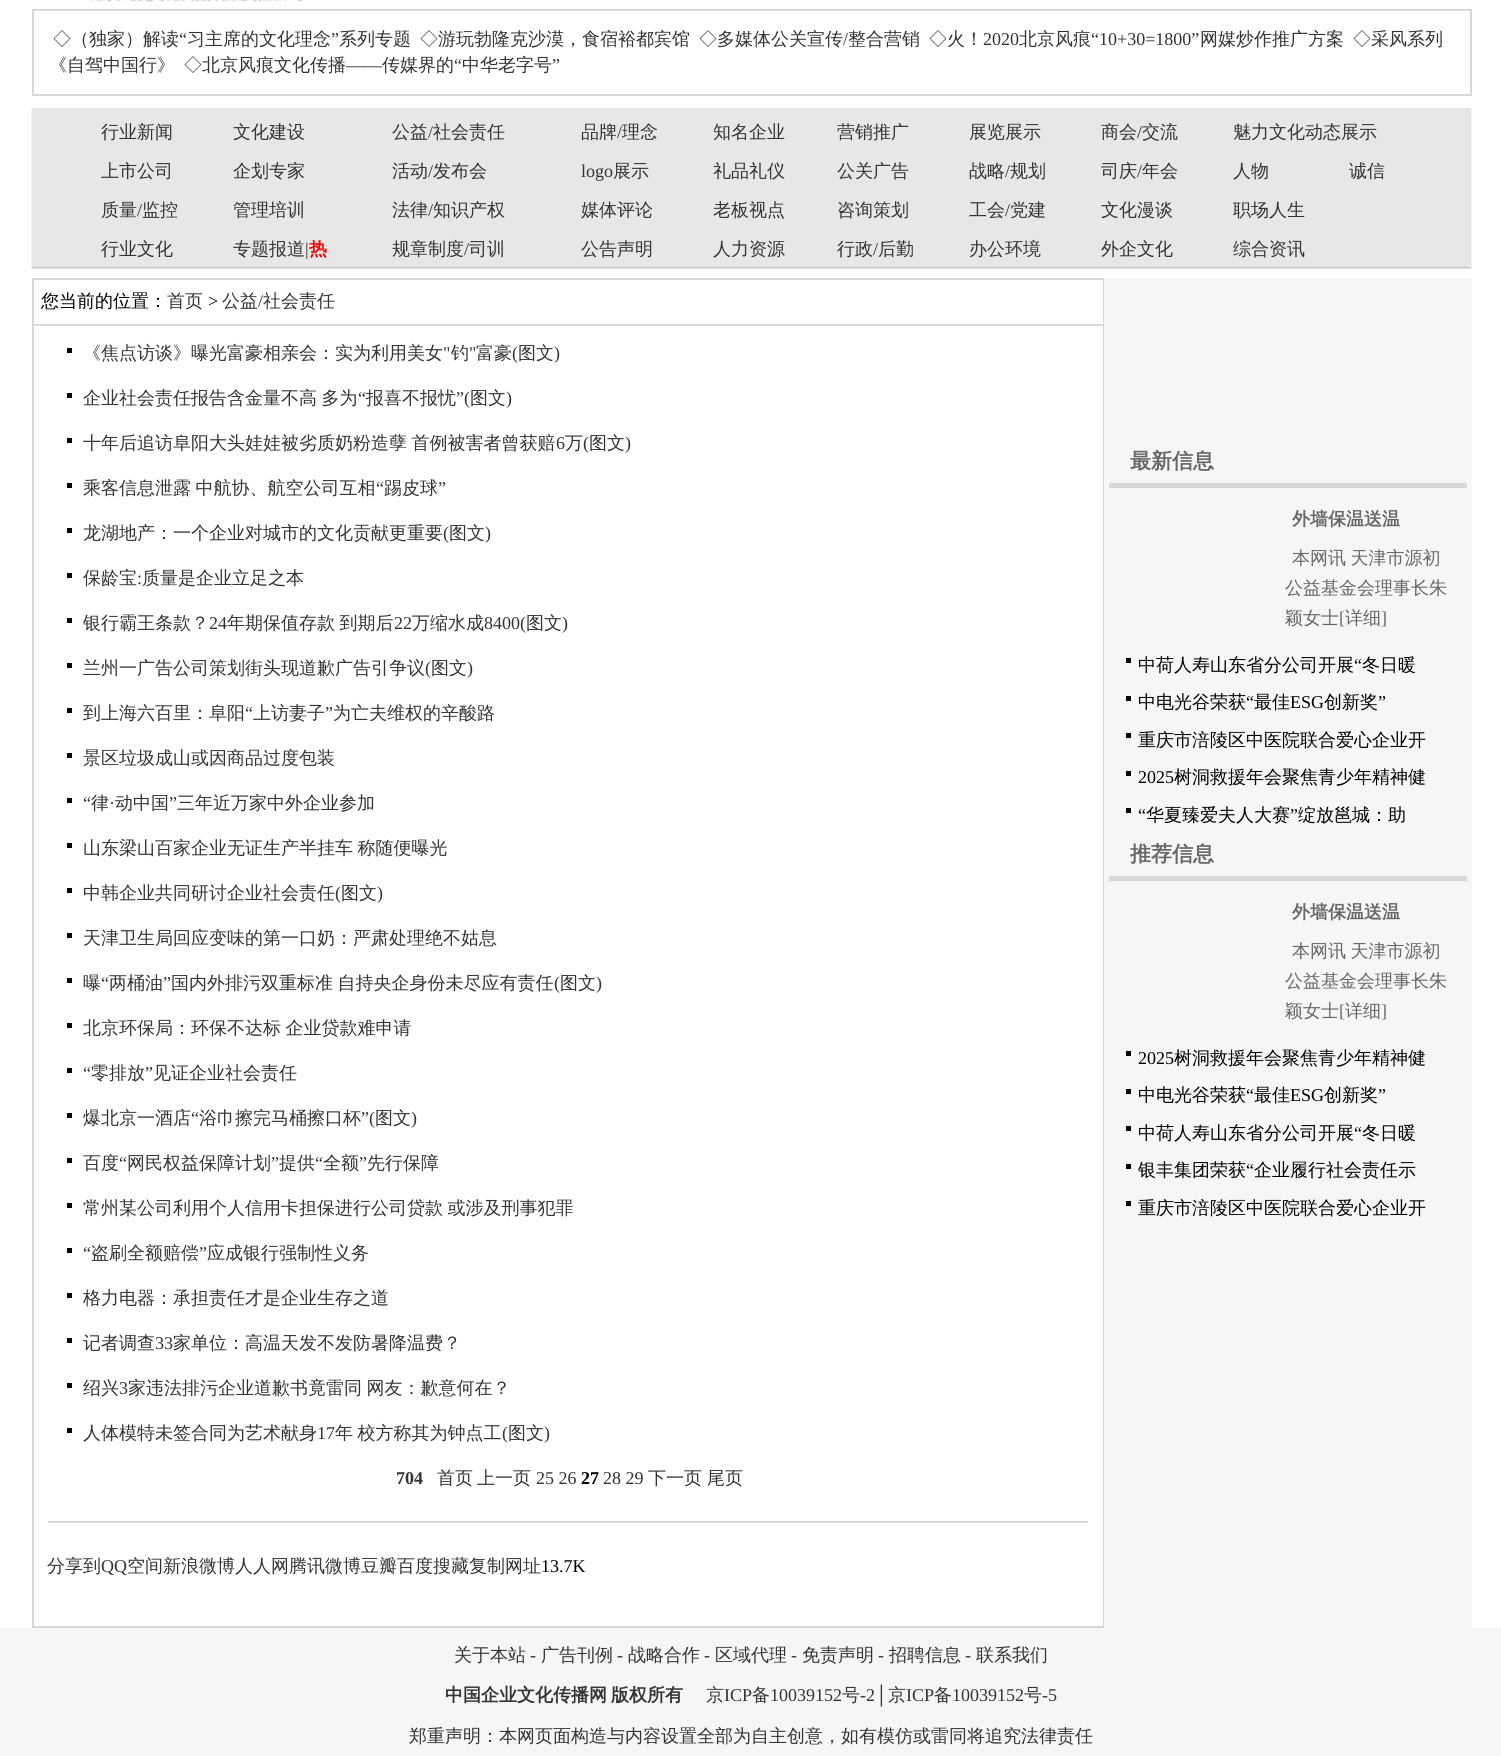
#include <cairo.h>
#include <math.h>
#include <stddef.h>


static void set_color(cairo_t *cr, unsigned color) {
    cairo_set_source_rgb(cr, (color >> 16) / 255.0, (color >> 8 & 255) / 255.0, (color & 255) / 255.0);
}

static void draw_text(cairo_t *cr, double x, double y, const char *s, const char *family, double size, int italic, int bold, unsigned color) {
    cairo_select_font_face(cr, family, italic ? CAIRO_FONT_SLANT_ITALIC : CAIRO_FONT_SLANT_NORMAL,
        bold ? CAIRO_FONT_WEIGHT_BOLD : CAIRO_FONT_WEIGHT_NORMAL);
    cairo_set_font_size(cr, size);
    set_color(cr, color);
    cairo_move_to(cr, x, y);
    cairo_show_text(cr, s);
}

static void draw_spaced(cairo_t *cr, double x, double y, const char *s, double letter, double word) {
    cairo_move_to(cr, x, y);
    while (*s) {
        char ch[5] = {0};
        int n = 0;
        do ch[n++] = *s++; while ((*s & 0xC0) == 0x80);
        cairo_show_text(cr, ch);
        cairo_rel_move_to(cr, letter + word * (*ch == ' '), 0);
    }
}

static void fill_rect(cairo_t *cr, double x, double y, double w, double h, unsigned color) {
    set_color(cr, color);
    cairo_rectangle(cr, x, y, w, h);
    cairo_fill(cr);
}

static void draw_image(cairo_t *cr, const char *path, double x, double y, double w, double h) {
    cairo_surface_t *image = cairo_image_surface_create_from_png(path);
    cairo_save(cr);
    cairo_set_source_surface(cr, image, x, y);
    cairo_rectangle(cr, x, y, w, h);
    cairo_fill(cr);
    cairo_restore(cr);
    cairo_surface_destroy(image);
}

int main(void) {
    cairo_surface_t *surface = cairo_image_surface_create(CAIRO_FORMAT_RGB24, 1501, 1756);
    cairo_t *cr = cairo_create(surface);
    cairo_font_options_t *options = cairo_font_options_create();
    cairo_font_options_set_hint_metrics(options, CAIRO_HINT_METRICS_OFF);
    cairo_font_options_set_hint_style(options, CAIRO_HINT_STYLE_NONE);
    cairo_set_font_options(cr, options);
    cairo_set_miter_limit(cr, 4);
    set_color(cr, 0xFFFFFF);
    cairo_paint(cr);
    draw_image(cr, "assets/img1.png", 91, 0, 212, 3);
    cairo_rectangle(cr, 33, 10, 1438, 85);
    set_color(cr, 0xD8D8D8);
    cairo_stroke(cr);
    draw_text(cr, 53, 45, "◇（独家）解读", "WenQuanYi Zen Hei Medium", 18, 0, 0, 0x333333);
    draw_text(cr, 179, 45, "“", "Liberation Serif", 18, 0, 0, 0x333333);
    draw_text(cr, 187, 45, "习主席的文化理念", "WenQuanYi Zen Hei Medium", 18, 0, 0, 0x333333);
    draw_text(cr, 331, 45, "”", "Liberation Serif", 18, 0, 0, 0x333333);
    draw_text(cr, 339, 45, "系列专题", "WenQuanYi Zen Hei Medium", 18, 0, 0, 0x333333);
    draw_text(cr, 420, 45, "◇游玩勃隆克沙漠，食宿裕都宾馆", "WenQuanYi Zen Hei Medium", 18, 0, 0, 0x333333);
    draw_text(cr, 699, 45, "◇多媒体公关宣传", "WenQuanYi Zen Hei Medium", 18, 0, 0, 0x333333);
    draw_text(cr, 843, 45, "/", "Liberation Serif", 18, 0, 0, 0x333333);
    draw_text(cr, 848, 45, "整合营销", "WenQuanYi Zen Hei Medium", 18, 0, 0, 0x333333);
    draw_text(cr, 929, 45, "◇火！", "WenQuanYi Zen Hei Medium", 18, 0, 0, 0x333333);
    draw_text(cr, 983, 45, "2020", "Liberation Serif", 18, 0, 0, 0x333333);
    draw_text(cr, 1019, 45, "北京风痕", "WenQuanYi Zen Hei Medium", 18, 0, 0, 0x333333);
    draw_text(cr, 1091, 45, "“10+30=1800”", "Liberation Serif", 18, 0, 0, 0x333333);
    draw_text(cr, 1200, 45, "网媒炒作推广方案", "WenQuanYi Zen Hei Medium", 18, 0, 0, 0x333333);
    draw_text(cr, 1353, 45, "◇采风系列", "WenQuanYi Zen Hei Medium", 18, 0, 0, 0x333333);
    draw_text(cr, 49, 71, "《自驾中国行》", "WenQuanYi Zen Hei Medium", 18, 0, 0, 0x333333);
    draw_text(cr, 184, 71, "◇北京风痕文化传播", "WenQuanYi Zen Hei Medium", 18, 0, 0, 0x333333);
    draw_text(cr, 346, 71, "——", "Liberation Serif", 18, 0, 0, 0x333333);
    draw_text(cr, 382, 71, "传媒界的", "WenQuanYi Zen Hei Medium", 18, 0, 0, 0x333333);
    draw_text(cr, 454, 71, "“", "Liberation Serif", 18, 0, 0, 0x333333);
    draw_text(cr, 462, 71, "中华老字号", "WenQuanYi Zen Hei Medium", 18, 0, 0, 0x333333);
    draw_text(cr, 552, 71, "”", "Liberation Serif", 18, 0, 0, 0x333333);
    draw_image(cr, "assets/img2.png", 31, 108, 1441, 161);
    draw_text(cr, 101, 138, "行业新闻", "WenQuanYi Zen Hei Medium", 18, 0, 0, 0x333333);
    draw_text(cr, 233, 138, "文化建设", "WenQuanYi Zen Hei Medium", 18, 0, 0, 0x333333);
    draw_text(cr, 392, 138, "公益", "WenQuanYi Zen Hei Medium", 18, 0, 0, 0x333333);
    draw_text(cr, 428, 138, "/", "Liberation Serif", 18, 0, 0, 0x333333);
    draw_text(cr, 433, 138, "社会责任", "WenQuanYi Zen Hei Medium", 18, 0, 0, 0x333333);
    draw_text(cr, 581, 138, "品牌", "WenQuanYi Zen Hei Medium", 18, 0, 0, 0x333333);
    draw_text(cr, 617, 138, "/", "Liberation Serif", 18, 0, 0, 0x333333);
    draw_text(cr, 622, 138, "理念", "WenQuanYi Zen Hei Medium", 18, 0, 0, 0x333333);
    draw_text(cr, 713, 138, "知名企业", "WenQuanYi Zen Hei Medium", 18, 0, 0, 0x333333);
    draw_text(cr, 837, 138, "营销推广", "WenQuanYi Zen Hei Medium", 18, 0, 0, 0x333333);
    draw_text(cr, 969, 138, "展览展示", "WenQuanYi Zen Hei Medium", 18, 0, 0, 0x333333);
    draw_text(cr, 1101, 138, "商会", "WenQuanYi Zen Hei Medium", 18, 0, 0, 0x333333);
    draw_text(cr, 1137, 138, "/", "Liberation Serif", 18, 0, 0, 0x333333);
    draw_text(cr, 1142, 138, "交流", "WenQuanYi Zen Hei Medium", 18, 0, 0, 0x333333);
    draw_text(cr, 1233, 138, "魅力文化动态展示", "WenQuanYi Zen Hei Medium", 18, 0, 0, 0x333333);
    draw_text(cr, 101, 177, "上市公司", "WenQuanYi Zen Hei Medium", 18, 0, 0, 0x333333);
    draw_text(cr, 233, 177, "企划专家", "WenQuanYi Zen Hei Medium", 18, 0, 0, 0x333333);
    draw_text(cr, 392, 177, "活动", "WenQuanYi Zen Hei Medium", 18, 0, 0, 0x333333);
    draw_text(cr, 428, 177, "/", "Liberation Serif", 18, 0, 0, 0x333333);
    draw_text(cr, 433, 177, "发布会", "WenQuanYi Zen Hei Medium", 18, 0, 0, 0x333333);
    draw_text(cr, 581, 177, "logo", "Liberation Serif", 18, 0, 0, 0x333333);
    draw_text(cr, 613, 177, "展示", "WenQuanYi Zen Hei Medium", 18, 0, 0, 0x333333);
    draw_text(cr, 713, 177, "礼品礼仪", "WenQuanYi Zen Hei Medium", 18, 0, 0, 0x333333);
    draw_text(cr, 837, 177, "公关广告", "WenQuanYi Zen Hei Medium", 18, 0, 0, 0x333333);
    draw_text(cr, 969, 177, "战略", "WenQuanYi Zen Hei Medium", 18, 0, 0, 0x333333);
    draw_text(cr, 1005, 177, "/", "Liberation Serif", 18, 0, 0, 0x333333);
    draw_text(cr, 1010, 177, "规划", "WenQuanYi Zen Hei Medium", 18, 0, 0, 0x333333);
    draw_text(cr, 1101, 177, "司庆", "WenQuanYi Zen Hei Medium", 18, 0, 0, 0x333333);
    draw_text(cr, 1137, 177, "/", "Liberation Serif", 18, 0, 0, 0x333333);
    draw_text(cr, 1142, 177, "年会", "WenQuanYi Zen Hei Medium", 18, 0, 0, 0x333333);
    draw_text(cr, 1233, 177, "人物", "WenQuanYi Zen Hei Medium", 18, 0, 0, 0x333333);
    draw_text(cr, 1349, 177, "诚信", "WenQuanYi Zen Hei Medium", 18, 0, 0, 0x333333);
    draw_text(cr, 101, 216, "质量", "WenQuanYi Zen Hei Medium", 18, 0, 0, 0x333333);
    draw_text(cr, 137, 216, "/", "Liberation Serif", 18, 0, 0, 0x333333);
    draw_text(cr, 142, 216, "监控", "WenQuanYi Zen Hei Medium", 18, 0, 0, 0x333333);
    draw_text(cr, 233, 216, "管理培训", "WenQuanYi Zen Hei Medium", 18, 0, 0, 0x333333);
    draw_text(cr, 392, 216, "法律", "WenQuanYi Zen Hei Medium", 18, 0, 0, 0x333333);
    draw_text(cr, 428, 216, "/", "Liberation Serif", 18, 0, 0, 0x333333);
    draw_text(cr, 433, 216, "知识产权", "WenQuanYi Zen Hei Medium", 18, 0, 0, 0x333333);
    draw_text(cr, 581, 216, "媒体评论", "WenQuanYi Zen Hei Medium", 18, 0, 0, 0x333333);
    draw_text(cr, 713, 216, "老板视点", "WenQuanYi Zen Hei Medium", 18, 0, 0, 0x333333);
    draw_text(cr, 837, 216, "咨询策划", "WenQuanYi Zen Hei Medium", 18, 0, 0, 0x333333);
    draw_text(cr, 969, 216, "工会", "WenQuanYi Zen Hei Medium", 18, 0, 0, 0x333333);
    draw_text(cr, 1005, 216, "/", "Liberation Serif", 18, 0, 0, 0x333333);
    draw_text(cr, 1010, 216, "党建", "WenQuanYi Zen Hei Medium", 18, 0, 0, 0x333333);
    draw_text(cr, 1101, 216, "文化漫谈", "WenQuanYi Zen Hei Medium", 18, 0, 0, 0x333333);
    draw_text(cr, 1233, 216, "职场人生", "WenQuanYi Zen Hei Medium", 18, 0, 0, 0x333333);
    draw_text(cr, 101, 255, "行业文化", "WenQuanYi Zen Hei Medium", 18, 0, 0, 0x333333);
    draw_text(cr, 233, 255, "专题报道", "WenQuanYi Zen Hei Medium", 18, 0, 0, 0x333333);
    draw_text(cr, 305, 255, "|", "Liberation Serif", 18, 0, 0, 0x333333);
    draw_text(cr, 309, 255, "热", "WenQuanYi Zen Hei", 18, 0, 1, 0xFF0000);
    draw_text(cr, 392, 255, "规章制度", "WenQuanYi Zen Hei Medium", 18, 0, 0, 0x333333);
    draw_text(cr, 464, 255, "/", "Liberation Serif", 18, 0, 0, 0x333333);
    draw_text(cr, 469, 255, "司训", "WenQuanYi Zen Hei Medium", 18, 0, 0, 0x333333);
    draw_text(cr, 581, 255, "公告声明", "WenQuanYi Zen Hei Medium", 18, 0, 0, 0x333333);
    draw_text(cr, 713, 255, "人力资源", "WenQuanYi Zen Hei Medium", 18, 0, 0, 0x333333);
    draw_text(cr, 837, 255, "行政", "WenQuanYi Zen Hei Medium", 18, 0, 0, 0x333333);
    draw_text(cr, 873, 255, "/", "Liberation Serif", 18, 0, 0, 0x333333);
    draw_text(cr, 878, 255, "后勤", "WenQuanYi Zen Hei Medium", 18, 0, 0, 0x333333);
    draw_text(cr, 969, 255, "办公环境", "WenQuanYi Zen Hei Medium", 18, 0, 0, 0x333333);
    draw_text(cr, 1101, 255, "外企文化", "WenQuanYi Zen Hei Medium", 18, 0, 0, 0x333333);
    draw_text(cr, 1233, 255, "综合资讯", "WenQuanYi Zen Hei Medium", 18, 0, 0, 0x333333);
    fill_rect(cr, 1103, 278, 1, 1350, 0xD8D8D8);
    fill_rect(cr, 32, 278, 1071, 2, 0xD8D8D8);
    fill_rect(cr, 32, 1626, 1071, 2, 0xD8D8D8);
    fill_rect(cr, 32, 278, 2, 1350, 0xD8D8D8);
    fill_rect(cr, 33, 324, 1070, 2, 0xD8D8D8);
    draw_text(cr, 41, 307, "您当前的位置：", "WenQuanYi Zen Hei Medium", 18, 0, 0, 0x000000);
    draw_text(cr, 167, 307, "首页", "WenQuanYi Zen Hei Medium", 18, 0, 0, 0x333333);
    draw_text(cr, 208, 307, ">", "Liberation Serif", 18, 0, 0, 0x000000);
    draw_text(cr, 222, 307, "公益", "WenQuanYi Zen Hei Medium", 18, 0, 0, 0x333333);
    draw_text(cr, 258, 307, "/", "Liberation Serif", 18, 0, 0, 0x333333);
    draw_text(cr, 263, 307, "社会责任", "WenQuanYi Zen Hei Medium", 18, 0, 0, 0x333333);
    fill_rect(cr, 67, 348, 5, 5, 0x010101);
    draw_text(cr, 83, 359, "《焦点访谈》曝光富豪相亲会：实为利用美女", "WenQuanYi Zen Hei Medium", 18, 0, 0, 0x333333);
    draw_text(cr, 443, 359, "\"", "Liberation Serif", 18, 0, 0, 0x333333);
    draw_text(cr, 451, 359, "钓", "WenQuanYi Zen Hei Medium", 18, 0, 0, 0x333333);
    draw_text(cr, 469, 359, "\"", "Liberation Serif", 18, 0, 0, 0x333333);
    draw_text(cr, 476, 359, "富豪", "WenQuanYi Zen Hei Medium", 18, 0, 0, 0x333333);
    draw_text(cr, 512, 359, "(", "Liberation Serif", 18, 0, 0, 0x333333);
    draw_text(cr, 518, 359, "图文", "WenQuanYi Zen Hei Medium", 18, 0, 0, 0x333333);
    draw_text(cr, 554, 359, ")", "Liberation Serif", 18, 0, 0, 0x333333);
    fill_rect(cr, 67, 393, 5, 5, 0x010101);
    cairo_select_font_face(cr, "WenQuanYi Zen Hei Medium", CAIRO_FONT_SLANT_NORMAL, CAIRO_FONT_WEIGHT_NORMAL);
    set_color(cr, 0x333333);
    draw_spaced(cr, 83, 404, "企业社会责任报告含金量不高 多为", 0, -1);
    draw_text(cr, 358, 404, "“", "Liberation Serif", 18, 0, 0, 0x333333);
    draw_text(cr, 366, 404, "报喜不报忧", "WenQuanYi Zen Hei Medium", 18, 0, 0, 0x333333);
    draw_text(cr, 456, 404, "”(", "Liberation Serif", 18, 0, 0, 0x333333);
    draw_text(cr, 470, 404, "图文", "WenQuanYi Zen Hei Medium", 18, 0, 0, 0x333333);
    draw_text(cr, 506, 404, ")", "Liberation Serif", 18, 0, 0, 0x333333);
    fill_rect(cr, 67, 438, 5, 5, 0x010101);
    cairo_select_font_face(cr, "WenQuanYi Zen Hei Medium", CAIRO_FONT_SLANT_NORMAL, CAIRO_FONT_WEIGHT_NORMAL);
    set_color(cr, 0x333333);
    draw_spaced(cr, 83, 449, "十年后追访阜阳大头娃娃被劣质奶粉造孽 首例被害者曾获赔", 0, -1);
    draw_text(cr, 556, 449, "6", "Liberation Serif", 18, 0, 0, 0x333333);
    draw_text(cr, 565, 449, "万", "WenQuanYi Zen Hei Medium", 18, 0, 0, 0x333333);
    draw_text(cr, 583, 449, "(", "Liberation Serif", 18, 0, 0, 0x333333);
    draw_text(cr, 589, 449, "图文", "WenQuanYi Zen Hei Medium", 18, 0, 0, 0x333333);
    draw_text(cr, 625, 449, ")", "Liberation Serif", 18, 0, 0, 0x333333);
    fill_rect(cr, 67, 483, 5, 5, 0x010101);
    cairo_select_font_face(cr, "WenQuanYi Zen Hei Medium", CAIRO_FONT_SLANT_NORMAL, CAIRO_FONT_WEIGHT_NORMAL);
    set_color(cr, 0x333333);
    draw_spaced(cr, 83, 494, "乘客信息泄露 中航协、航空公司互相", 0, -1);
    draw_text(cr, 376, 494, "“", "Liberation Serif", 18, 0, 0, 0x333333);
    draw_text(cr, 384, 494, "踢皮球", "WenQuanYi Zen Hei Medium", 18, 0, 0, 0x333333);
    draw_text(cr, 438, 494, "”", "Liberation Serif", 18, 0, 0, 0x333333);
    fill_rect(cr, 67, 528, 5, 5, 0x010101);
    draw_text(cr, 83, 539, "龙湖地产：一个企业对城市的文化贡献更重要", "WenQuanYi Zen Hei Medium", 18, 0, 0, 0x333333);
    draw_text(cr, 443, 539, "(", "Liberation Serif", 18, 0, 0, 0x333333);
    draw_text(cr, 449, 539, "图文", "WenQuanYi Zen Hei Medium", 18, 0, 0, 0x333333);
    draw_text(cr, 485, 539, ")", "Liberation Serif", 18, 0, 0, 0x333333);
    fill_rect(cr, 67, 573, 5, 5, 0x010101);
    draw_text(cr, 83, 584, "保龄宝", "WenQuanYi Zen Hei Medium", 18, 0, 0, 0x333333);
    draw_text(cr, 137, 584, ":", "Liberation Serif", 18, 0, 0, 0x333333);
    draw_text(cr, 142, 584, "质量是企业立足之本", "WenQuanYi Zen Hei Medium", 18, 0, 0, 0x333333);
    fill_rect(cr, 67, 618, 5, 5, 0x010101);
    draw_text(cr, 83, 629, "银行霸王条款？", "WenQuanYi Zen Hei Medium", 18, 0, 0, 0x333333);
    draw_text(cr, 209, 629, "24", "Liberation Serif", 18, 0, 0, 0x333333);
    cairo_select_font_face(cr, "WenQuanYi Zen Hei Medium", CAIRO_FONT_SLANT_NORMAL, CAIRO_FONT_WEIGHT_NORMAL);
    draw_spaced(cr, 227, 629, "年期保值存款 到期后", 0, -1);
    draw_text(cr, 394, 629, "22", "Liberation Serif", 18, 0, 0, 0x333333);
    draw_text(cr, 412, 629, "万缩水成", "WenQuanYi Zen Hei Medium", 18, 0, 0, 0x333333);
    draw_text(cr, 484, 629, "8400(", "Liberation Serif", 18, 0, 0, 0x333333);
    draw_text(cr, 526, 629, "图文", "WenQuanYi Zen Hei Medium", 18, 0, 0, 0x333333);
    draw_text(cr, 562, 629, ")", "Liberation Serif", 18, 0, 0, 0x333333);
    fill_rect(cr, 67, 663, 5, 5, 0x010101);
    draw_text(cr, 83, 674, "兰州一广告公司策划街头现道歉广告引争议", "WenQuanYi Zen Hei Medium", 18, 0, 0, 0x333333);
    draw_text(cr, 425, 674, "(", "Liberation Serif", 18, 0, 0, 0x333333);
    draw_text(cr, 431, 674, "图文", "WenQuanYi Zen Hei Medium", 18, 0, 0, 0x333333);
    draw_text(cr, 467, 674, ")", "Liberation Serif", 18, 0, 0, 0x333333);
    fill_rect(cr, 67, 708, 5, 5, 0x010101);
    draw_text(cr, 83, 719, "到上海六百里：阜阳", "WenQuanYi Zen Hei Medium", 18, 0, 0, 0x333333);
    draw_text(cr, 245, 719, "“", "Liberation Serif", 18, 0, 0, 0x333333);
    draw_text(cr, 253, 719, "上访妻子", "WenQuanYi Zen Hei Medium", 18, 0, 0, 0x333333);
    draw_text(cr, 325, 719, "”", "Liberation Serif", 18, 0, 0, 0x333333);
    draw_text(cr, 333, 719, "为亡夫维权的辛酸路", "WenQuanYi Zen Hei Medium", 18, 0, 0, 0x333333);
    fill_rect(cr, 67, 753, 5, 5, 0x010101);
    draw_text(cr, 83, 764, "景区垃圾成山或因商品过度包装", "WenQuanYi Zen Hei Medium", 18, 0, 0, 0x333333);
    fill_rect(cr, 67, 798, 5, 5, 0x010101);
    draw_text(cr, 83, 809, "“", "Liberation Serif", 18, 0, 0, 0x333333);
    draw_text(cr, 91, 809, "律", "WenQuanYi Zen Hei Medium", 18, 0, 0, 0x333333);
    draw_text(cr, 115, 809, "动中国", "WenQuanYi Zen Hei Medium", 18, 0, 0, 0x333333);
    draw_text(cr, 169, 809, "”", "Liberation Serif", 18, 0, 0, 0x333333);
    draw_text(cr, 177, 809, "三年近万家中外企业参加", "WenQuanYi Zen Hei Medium", 18, 0, 0, 0x333333);
    draw_text(cr, 109, 809, "·", "Liberation Serif", 18, 0, 0, 0x333333);
    fill_rect(cr, 67, 843, 5, 5, 0x010101);
    cairo_select_font_face(cr, "WenQuanYi Zen Hei Medium", CAIRO_FONT_SLANT_NORMAL, CAIRO_FONT_WEIGHT_NORMAL);
    set_color(cr, 0x333333);
    draw_spaced(cr, 83, 854, "山东梁山百家企业无证生产半挂车 称随便曝光", 0, -1);
    fill_rect(cr, 67, 888, 5, 5, 0x010101);
    draw_text(cr, 83, 899, "中韩企业共同研讨企业社会责任", "WenQuanYi Zen Hei Medium", 18, 0, 0, 0x333333);
    draw_text(cr, 335, 899, "(", "Liberation Serif", 18, 0, 0, 0x333333);
    draw_text(cr, 341, 899, "图文", "WenQuanYi Zen Hei Medium", 18, 0, 0, 0x333333);
    draw_text(cr, 377, 899, ")", "Liberation Serif", 18, 0, 0, 0x333333);
    fill_rect(cr, 67, 933, 5, 5, 0x010101);
    draw_text(cr, 83, 944, "天津卫生局回应变味的第一口奶：严肃处理绝不姑息", "WenQuanYi Zen Hei Medium", 18, 0, 0, 0x333333);
    fill_rect(cr, 67, 978, 5, 5, 0x010101);
    draw_text(cr, 83, 989, "曝", "WenQuanYi Zen Hei Medium", 18, 0, 0, 0x333333);
    draw_text(cr, 101, 989, "“", "Liberation Serif", 18, 0, 0, 0x333333);
    draw_text(cr, 109, 989, "两桶油", "WenQuanYi Zen Hei Medium", 18, 0, 0, 0x333333);
    draw_text(cr, 163, 989, "”", "Liberation Serif", 18, 0, 0, 0x333333);
    cairo_select_font_face(cr, "WenQuanYi Zen Hei Medium", CAIRO_FONT_SLANT_NORMAL, CAIRO_FONT_WEIGHT_NORMAL);
    draw_spaced(cr, 171, 989, "国内外排污双重标准 自持央企身份未尽应有责任", 0, -1);
    draw_text(cr, 554, 989, "(", "Liberation Serif", 18, 0, 0, 0x333333);
    draw_text(cr, 560, 989, "图文", "WenQuanYi Zen Hei Medium", 18, 0, 0, 0x333333);
    draw_text(cr, 596, 989, ")", "Liberation Serif", 18, 0, 0, 0x333333);
    fill_rect(cr, 67, 1023, 5, 5, 0x010101);
    cairo_select_font_face(cr, "WenQuanYi Zen Hei Medium", CAIRO_FONT_SLANT_NORMAL, CAIRO_FONT_WEIGHT_NORMAL);
    set_color(cr, 0x333333);
    draw_spaced(cr, 83, 1034, "北京环保局：环保不达标 企业贷款难申请", 0, -1);
    fill_rect(cr, 67, 1068, 5, 5, 0x010101);
    draw_text(cr, 83, 1079, "“", "Liberation Serif", 18, 0, 0, 0x333333);
    draw_text(cr, 91, 1079, "零排放", "WenQuanYi Zen Hei Medium", 18, 0, 0, 0x333333);
    draw_text(cr, 145, 1079, "”", "Liberation Serif", 18, 0, 0, 0x333333);
    draw_text(cr, 153, 1079, "见证企业社会责任", "WenQuanYi Zen Hei Medium", 18, 0, 0, 0x333333);
    fill_rect(cr, 67, 1113, 5, 5, 0x010101);
    draw_text(cr, 83, 1124, "爆北京一酒店", "WenQuanYi Zen Hei Medium", 18, 0, 0, 0x333333);
    draw_text(cr, 191, 1124, "“", "Liberation Serif", 18, 0, 0, 0x333333);
    draw_text(cr, 199, 1124, "浴巾擦完马桶擦口杯", "WenQuanYi Zen Hei Medium", 18, 0, 0, 0x333333);
    draw_text(cr, 361, 1124, "”(", "Liberation Serif", 18, 0, 0, 0x333333);
    draw_text(cr, 375, 1124, "图文", "WenQuanYi Zen Hei Medium", 18, 0, 0, 0x333333);
    draw_text(cr, 411, 1124, ")", "Liberation Serif", 18, 0, 0, 0x333333);
    fill_rect(cr, 67, 1158, 5, 5, 0x010101);
    draw_text(cr, 83, 1169, "百度", "WenQuanYi Zen Hei Medium", 18, 0, 0, 0x333333);
    draw_text(cr, 119, 1169, "“", "Liberation Serif", 18, 0, 0, 0x333333);
    draw_text(cr, 127, 1169, "网民权益保障计划", "WenQuanYi Zen Hei Medium", 18, 0, 0, 0x333333);
    draw_text(cr, 271, 1169, "”", "Liberation Serif", 18, 0, 0, 0x333333);
    draw_text(cr, 279, 1169, "提供", "WenQuanYi Zen Hei Medium", 18, 0, 0, 0x333333);
    draw_text(cr, 315, 1169, "“", "Liberation Serif", 18, 0, 0, 0x333333);
    draw_text(cr, 323, 1169, "全额", "WenQuanYi Zen Hei Medium", 18, 0, 0, 0x333333);
    draw_text(cr, 359, 1169, "”", "Liberation Serif", 18, 0, 0, 0x333333);
    draw_text(cr, 367, 1169, "先行保障", "WenQuanYi Zen Hei Medium", 18, 0, 0, 0x333333);
    fill_rect(cr, 67, 1203, 5, 5, 0x010101);
    set_color(cr, 0x333333);
    draw_spaced(cr, 83, 1214, "常州某公司利用个人信用卡担保进行公司贷款 或涉及刑事犯罪", 0, -1);
    fill_rect(cr, 67, 1248, 5, 5, 0x010101);
    draw_text(cr, 83, 1259, "“", "Liberation Serif", 18, 0, 0, 0x333333);
    draw_text(cr, 91, 1259, "盗刷全额赔偿", "WenQuanYi Zen Hei Medium", 18, 0, 0, 0x333333);
    draw_text(cr, 199, 1259, "”", "Liberation Serif", 18, 0, 0, 0x333333);
    draw_text(cr, 207, 1259, "应成银行强制性义务", "WenQuanYi Zen Hei Medium", 18, 0, 0, 0x333333);
    fill_rect(cr, 67, 1293, 5, 5, 0x010101);
    draw_text(cr, 83, 1304, "格力电器：承担责任才是企业生存之道", "WenQuanYi Zen Hei Medium", 18, 0, 0, 0x333333);
    fill_rect(cr, 67, 1338, 5, 5, 0x010101);
    draw_text(cr, 83, 1349, "记者调查", "WenQuanYi Zen Hei Medium", 18, 0, 0, 0x333333);
    draw_text(cr, 155, 1349, "33", "Liberation Serif", 18, 0, 0, 0x333333);
    draw_text(cr, 173, 1349, "家单位：高温天发不发防暑降温费？", "WenQuanYi Zen Hei Medium", 18, 0, 0, 0x333333);
    fill_rect(cr, 67, 1383, 5, 5, 0x010101);
    draw_text(cr, 83, 1394, "绍兴", "WenQuanYi Zen Hei Medium", 18, 0, 0, 0x333333);
    draw_text(cr, 119, 1394, "3", "Liberation Serif", 18, 0, 0, 0x333333);
    cairo_select_font_face(cr, "WenQuanYi Zen Hei Medium", CAIRO_FONT_SLANT_NORMAL, CAIRO_FONT_WEIGHT_NORMAL);
    draw_spaced(cr, 128, 1394, "家违法排污企业道歉书竟雷同 网友：歉意何在？", 0, -1);
    fill_rect(cr, 67, 1428, 5, 5, 0x010101);
    draw_text(cr, 83, 1439, "人体模特未签合同为艺术献身", "WenQuanYi Zen Hei Medium", 18, 0, 0, 0x333333);
    draw_text(cr, 317, 1439, "17", "Liberation Serif", 18, 0, 0, 0x333333);
    cairo_select_font_face(cr, "WenQuanYi Zen Hei Medium", CAIRO_FONT_SLANT_NORMAL, CAIRO_FONT_WEIGHT_NORMAL);
    draw_spaced(cr, 335, 1439, "年 校方称其为钟点工", 0, -1);
    draw_text(cr, 502, 1439, "(", "Liberation Serif", 18, 0, 0, 0x333333);
    draw_text(cr, 508, 1439, "图文", "WenQuanYi Zen Hei Medium", 18, 0, 0, 0x333333);
    draw_text(cr, 544, 1439, ")", "Liberation Serif", 18, 0, 0, 0x333333);
    draw_text(cr, 396, 1484, "704", "Liberation Serif", 18, 0, 1, 0x333333);
    draw_text(cr, 437, 1484, "首页", "WenQuanYi Zen Hei Medium", 18, 0, 0, 0x333333);
    draw_text(cr, 477, 1484, "上一页", "WenQuanYi Zen Hei Medium", 18, 0, 0, 0x333333);
    draw_text(cr, 536, 1484, "25 26", "Liberation Serif", 18, 0, 0, 0x333333);
    draw_text(cr, 581, 1484, "27", "Liberation Serif", 18, 0, 1, 0x000000);
    draw_text(cr, 603, 1484, "28 29", "Liberation Serif", 18, 0, 0, 0x333333);
    draw_text(cr, 648, 1484, "下一页", "WenQuanYi Zen Hei Medium", 18, 0, 0, 0x333333);
    draw_text(cr, 707, 1484, "尾页", "WenQuanYi Zen Hei Medium", 18, 0, 0, 0x333333);
    fill_rect(cr, 48, 1521, 1040, 2, 0xD8D8D8);
    draw_text(cr, 47, 1572, "分享到", "WenQuanYi Zen Hei Medium", 18, 0, 0, 0x333333);
    draw_text(cr, 101, 1572, "QQ", "Liberation Serif", 18, 0, 0, 0x333333);
    draw_text(cr, 127, 1572, "空间新浪微博人人网腾讯微博豆瓣百度搜藏复制网址", "WenQuanYi Zen Hei Medium", 18, 0, 0, 0x333333);
    draw_text(cr, 541, 1572, "13.7K", "Liberation Serif", 18, 0, 0, 0x000000);
    fill_rect(cr, 1104, 278, 368, 1350, 0xF6F6F6);
    fill_rect(cr, 1109, 483, 358, 5, 0xD8D8D8);
    draw_text(cr, 1130, 468, "最新信息", "WenQuanYi Zen Hei", 21, 0, 1, 0x666666);
    draw_text(cr, 1292, 525, "外墙保温送温", "WenQuanYi Zen Hei", 18, 0, 1, 0x666666);
    cairo_select_font_face(cr, "WenQuanYi Zen Hei Medium", CAIRO_FONT_SLANT_NORMAL, CAIRO_FONT_WEIGHT_NORMAL);
    draw_spaced(cr, 1292, 564, "本网讯 天津市源初", 0, -1);
    draw_text(cr, 1285, 594, "公益基金会理事长朱", "WenQuanYi Zen Hei Medium", 18, 0, 0, 0x666666);
    draw_text(cr, 1285, 624, "颖女士", "WenQuanYi Zen Hei Medium", 18, 0, 0, 0x666666);
    draw_text(cr, 1339, 624, "[", "Liberation Serif", 18, 0, 0, 0x666666);
    draw_text(cr, 1345, 624, "详细", "WenQuanYi Zen Hei Medium", 18, 0, 0, 0x666666);
    draw_text(cr, 1381, 624, "]", "Liberation Serif", 18, 0, 0, 0x666666);
    fill_rect(cr, 1126, 658, 5, 5, 0x010101);
    draw_text(cr, 1138, 671, "中荷人寿山东省分公司开展", "WenQuanYi Zen Hei Medium", 18, 0, 0, 0x000000);
    draw_text(cr, 1354, 671, "“", "Liberation Serif", 18, 0, 0, 0x000000);
    draw_text(cr, 1362, 671, "冬日暖", "WenQuanYi Zen Hei Medium", 18, 0, 0, 0x000000);
    fill_rect(cr, 1126, 696, 5, 5, 0x010101);
    draw_text(cr, 1138, 708, "中电光谷荣获", "WenQuanYi Zen Hei Medium", 18, 0, 0, 0x000000);
    draw_text(cr, 1246, 708, "“", "Liberation Serif", 18, 0, 0, 0x000000);
    draw_text(cr, 1254, 708, "最佳", "WenQuanYi Zen Hei Medium", 18, 0, 0, 0x000000);
    draw_text(cr, 1290, 708, "ESG", "Liberation Serif", 18, 0, 0, 0x000000);
    draw_text(cr, 1324, 708, "创新奖", "WenQuanYi Zen Hei Medium", 18, 0, 0, 0x000000);
    draw_text(cr, 1378, 708, "”", "Liberation Serif", 18, 0, 0, 0x000000);
    fill_rect(cr, 1126, 733, 5, 5, 0x010101);
    draw_text(cr, 1138, 746, "重庆市涪陵区中医院联合爱心企业开", "WenQuanYi Zen Hei Medium", 18, 0, 0, 0x000000);
    fill_rect(cr, 1126, 771, 5, 5, 0x010101);
    draw_text(cr, 1138, 783, "2025", "Liberation Serif", 18, 0, 0, 0x000000);
    draw_text(cr, 1174, 783, "树洞救援年会聚焦青少年精神健", "WenQuanYi Zen Hei Medium", 18, 0, 0, 0x000000);
    fill_rect(cr, 1126, 808, 5, 5, 0x010101);
    draw_text(cr, 1138, 821, "“", "Liberation Serif", 18, 0, 0, 0x000000);
    draw_text(cr, 1146, 821, "华夏臻爱夫人大赛", "WenQuanYi Zen Hei Medium", 18, 0, 0, 0x000000);
    draw_text(cr, 1290, 821, "”", "Liberation Serif", 18, 0, 0, 0x000000);
    draw_text(cr, 1298, 821, "绽放邕城：助", "WenQuanYi Zen Hei Medium", 18, 0, 0, 0x000000);
    fill_rect(cr, 1109, 876, 358, 5, 0xD8D8D8);
    draw_text(cr, 1130, 861, "推荐信息", "WenQuanYi Zen Hei", 21, 0, 1, 0x666666);
    draw_text(cr, 1292, 918, "外墙保温送温", "WenQuanYi Zen Hei", 18, 0, 1, 0x666666);
    cairo_select_font_face(cr, "WenQuanYi Zen Hei Medium", CAIRO_FONT_SLANT_NORMAL, CAIRO_FONT_WEIGHT_NORMAL);
    draw_spaced(cr, 1292, 957, "本网讯 天津市源初", 0, -1);
    draw_text(cr, 1285, 987, "公益基金会理事长朱", "WenQuanYi Zen Hei Medium", 18, 0, 0, 0x666666);
    draw_text(cr, 1285, 1017, "颖女士", "WenQuanYi Zen Hei Medium", 18, 0, 0, 0x666666);
    draw_text(cr, 1339, 1017, "[", "Liberation Serif", 18, 0, 0, 0x666666);
    draw_text(cr, 1345, 1017, "详细", "WenQuanYi Zen Hei Medium", 18, 0, 0, 0x666666);
    draw_text(cr, 1381, 1017, "]", "Liberation Serif", 18, 0, 0, 0x666666);
    fill_rect(cr, 1126, 1051, 5, 5, 0x010101);
    draw_text(cr, 1138, 1064, "2025", "Liberation Serif", 18, 0, 0, 0x000000);
    draw_text(cr, 1174, 1064, "树洞救援年会聚焦青少年精神健", "WenQuanYi Zen Hei Medium", 18, 0, 0, 0x000000);
    fill_rect(cr, 1126, 1089, 5, 5, 0x010101);
    draw_text(cr, 1138, 1101, "中电光谷荣获", "WenQuanYi Zen Hei Medium", 18, 0, 0, 0x000000);
    draw_text(cr, 1246, 1101, "“", "Liberation Serif", 18, 0, 0, 0x000000);
    draw_text(cr, 1254, 1101, "最佳", "WenQuanYi Zen Hei Medium", 18, 0, 0, 0x000000);
    draw_text(cr, 1290, 1101, "ESG", "Liberation Serif", 18, 0, 0, 0x000000);
    draw_text(cr, 1324, 1101, "创新奖", "WenQuanYi Zen Hei Medium", 18, 0, 0, 0x000000);
    draw_text(cr, 1378, 1101, "”", "Liberation Serif", 18, 0, 0, 0x000000);
    fill_rect(cr, 1126, 1126, 5, 5, 0x010101);
    draw_text(cr, 1138, 1139, "中荷人寿山东省分公司开展", "WenQuanYi Zen Hei Medium", 18, 0, 0, 0x000000);
    draw_text(cr, 1354, 1139, "“", "Liberation Serif", 18, 0, 0, 0x000000);
    draw_text(cr, 1362, 1139, "冬日暖", "WenQuanYi Zen Hei Medium", 18, 0, 0, 0x000000);
    fill_rect(cr, 1126, 1164, 5, 5, 0x010101);
    draw_text(cr, 1138, 1176, "银丰集团荣获", "WenQuanYi Zen Hei Medium", 18, 0, 0, 0x000000);
    draw_text(cr, 1246, 1176, "“", "Liberation Serif", 18, 0, 0, 0x000000);
    draw_text(cr, 1254, 1176, "企业履行社会责任示", "WenQuanYi Zen Hei Medium", 18, 0, 0, 0x000000);
    fill_rect(cr, 1126, 1201, 5, 5, 0x010101);
    draw_text(cr, 1138, 1214, "重庆市涪陵区中医院联合爱心企业开", "WenQuanYi Zen Hei Medium", 18, 0, 0, 0x000000);
    fill_rect(cr, 0, 1628, 1501, 128, 0xF6F6F6);
    draw_text(cr, 454, 1661, "关于本站", "WenQuanYi Zen Hei Medium", 18, 0, 0, 0x333333);
    draw_text(cr, 530, 1661, "-", "Liberation Serif", 18, 0, 0, 0x333333);
    draw_text(cr, 541, 1661, "广告刊例", "WenQuanYi Zen Hei Medium", 18, 0, 0, 0x333333);
    draw_text(cr, 617, 1661, "-", "Liberation Serif", 18, 0, 0, 0x333333);
    draw_text(cr, 628, 1661, "战略合作", "WenQuanYi Zen Hei Medium", 18, 0, 0, 0x333333);
    draw_text(cr, 704, 1661, "-", "Liberation Serif", 18, 0, 0, 0x333333);
    draw_text(cr, 715, 1661, "区域代理", "WenQuanYi Zen Hei Medium", 18, 0, 0, 0x333333);
    draw_text(cr, 791, 1661, "-", "Liberation Serif", 18, 0, 0, 0x333333);
    draw_text(cr, 802, 1661, "免责声明", "WenQuanYi Zen Hei Medium", 18, 0, 0, 0x333333);
    draw_text(cr, 878, 1661, "-", "Liberation Serif", 18, 0, 0, 0x333333);
    draw_text(cr, 889, 1661, "招聘信息", "WenQuanYi Zen Hei Medium", 18, 0, 0, 0x333333);
    draw_text(cr, 965, 1661, "-", "Liberation Serif", 18, 0, 0, 0x333333);
    draw_text(cr, 976, 1661, "联系我们", "WenQuanYi Zen Hei Medium", 18, 0, 0, 0x333333);
    draw_text(cr, 445, 1701, "中国企业文化传播网", "WenQuanYi Zen Hei", 18, 0, 1, 0x333333);
    draw_text(cr, 611, 1701, "版权所有", "WenQuanYi Zen Hei", 18, 0, 1, 0x333333);
    draw_text(cr, 706, 1701, "京", "WenQuanYi Zen Hei Medium", 18, 0, 0, 0x333333);
    draw_text(cr, 724, 1701, "ICP", "Liberation Serif", 18, 0, 0, 0x333333);
    draw_text(cr, 752, 1701, "备", "WenQuanYi Zen Hei Medium", 18, 0, 0, 0x333333);
    draw_text(cr, 770, 1701, "10039152", "Liberation Serif", 18, 0, 0, 0x333333);
    draw_text(cr, 842, 1701, "号", "WenQuanYi Zen Hei Medium", 18, 0, 0, 0x333333);
    draw_text(cr, 860, 1701, "-2│", "Liberation Serif", 18, 0, 0, 0x333333);
    draw_text(cr, 888, 1701, "京", "WenQuanYi Zen Hei Medium", 18, 0, 0, 0x333333);
    draw_text(cr, 906, 1701, "ICP", "Liberation Serif", 18, 0, 0, 0x333333);
    draw_text(cr, 934, 1701, "备", "WenQuanYi Zen Hei Medium", 18, 0, 0, 0x333333);
    draw_text(cr, 952, 1701, "10039152", "Liberation Serif", 18, 0, 0, 0x333333);
    draw_text(cr, 1024, 1701, "号", "WenQuanYi Zen Hei Medium", 18, 0, 0, 0x333333);
    draw_text(cr, 1042, 1701, "-5", "Liberation Serif", 18, 0, 0, 0x333333);
    draw_text(cr, 409, 1742, "郑重声明：本网页面构造与内容设置全部为自主创意，如有模仿或雷同将追究法律责任", "WenQuanYi Zen Hei Medium", 18, 0, 0, 0x333333);
    cairo_surface_write_to_png(surface, "output.png");
    cairo_font_options_destroy(options);
    cairo_destroy(cr);
    cairo_surface_destroy(surface);
    return 0;
}
